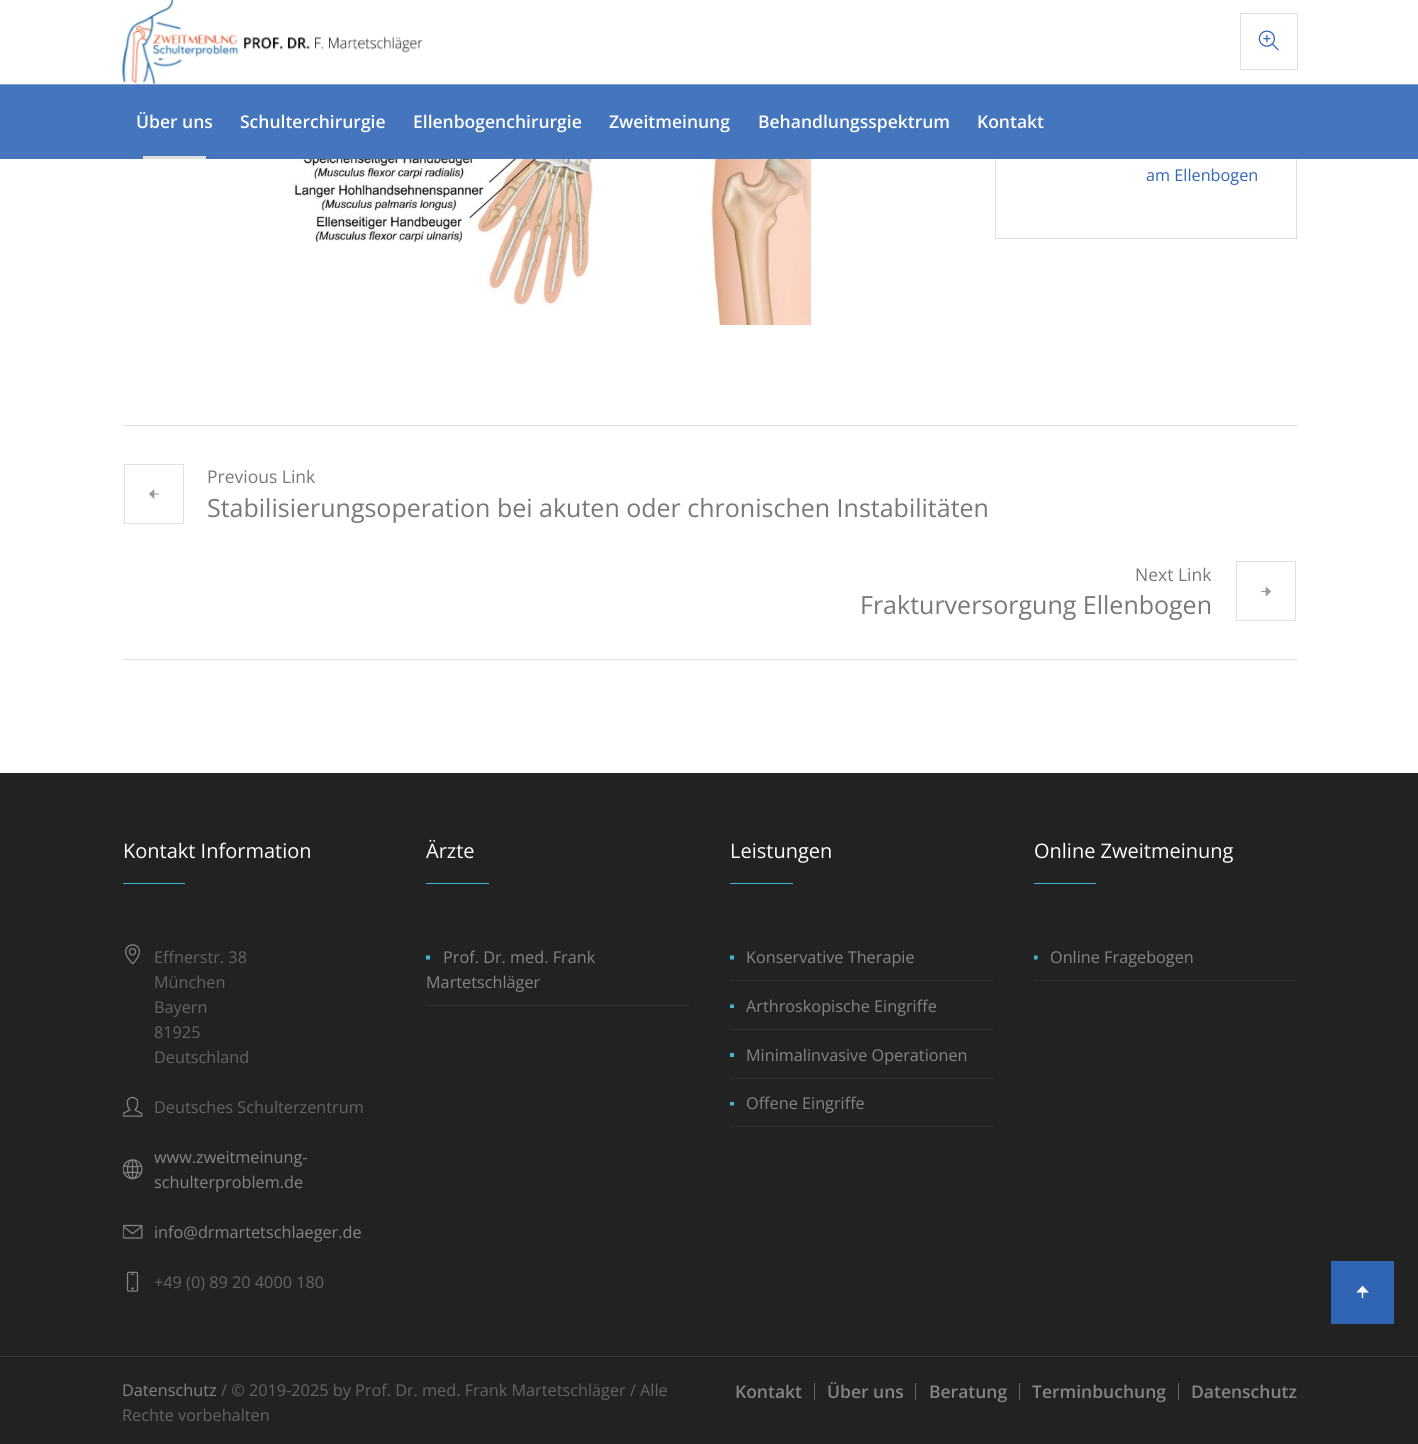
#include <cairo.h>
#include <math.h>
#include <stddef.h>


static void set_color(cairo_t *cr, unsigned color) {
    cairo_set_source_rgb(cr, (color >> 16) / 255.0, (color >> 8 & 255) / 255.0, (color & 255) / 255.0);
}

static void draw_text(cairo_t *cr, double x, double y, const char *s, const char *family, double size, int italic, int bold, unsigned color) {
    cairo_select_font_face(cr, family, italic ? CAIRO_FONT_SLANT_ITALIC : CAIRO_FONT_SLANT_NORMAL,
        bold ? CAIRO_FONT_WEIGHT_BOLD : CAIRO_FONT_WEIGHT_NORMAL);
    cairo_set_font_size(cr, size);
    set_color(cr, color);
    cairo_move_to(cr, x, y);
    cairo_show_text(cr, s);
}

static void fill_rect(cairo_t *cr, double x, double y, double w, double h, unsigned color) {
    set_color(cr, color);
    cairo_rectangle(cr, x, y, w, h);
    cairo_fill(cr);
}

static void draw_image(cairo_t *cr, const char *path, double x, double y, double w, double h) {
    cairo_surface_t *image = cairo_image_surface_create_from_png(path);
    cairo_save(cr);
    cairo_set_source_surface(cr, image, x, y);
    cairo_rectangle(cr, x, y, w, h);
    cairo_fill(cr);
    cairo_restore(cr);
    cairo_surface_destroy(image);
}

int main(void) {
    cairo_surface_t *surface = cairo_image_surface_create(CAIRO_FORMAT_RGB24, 1418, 1444);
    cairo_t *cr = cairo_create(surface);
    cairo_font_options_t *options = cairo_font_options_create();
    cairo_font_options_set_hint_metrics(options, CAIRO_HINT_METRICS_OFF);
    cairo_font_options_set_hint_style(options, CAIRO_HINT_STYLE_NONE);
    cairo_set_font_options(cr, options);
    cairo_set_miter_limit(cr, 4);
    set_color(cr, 0xFFFFFF);
    cairo_paint(cr);
    draw_image(cr, "assets/img1.png", 122, 0, 301, 84);
    cairo_rectangle(cr, 1240.5, 13.5, 57, 56);
    set_color(cr, 0xE0E0E0);
    cairo_set_line_width(cr, 1);
    cairo_stroke(cr);
    draw_image(cr, "assets/img2.png", 1258, 30, 21, 21);
    fill_rect(cr, 0, 85, 1418, 74, 0x4575BD);
    fill_rect(cr, 0, 84, 1418, 1, 0x7D9ED1);
    draw_text(cr, 136, 128, "Über uns", "Open Sans SemiBold", 17.5, 0, 0, 0xFFFFFF);
    draw_text(cr, 240, 128, "Schulterchirurgie", "Open Sans SemiBold", 17.5, 0, 0, 0xFFFFFF);
    draw_text(cr, 413, 128, "Ellenbogenchirurgie", "Open Sans SemiBold", 17.5, 0, 0, 0xFFFFFF);
    draw_text(cr, 609, 128, "Zweitmeinung", "Open Sans SemiBold", 17.5, 0, 0, 0xFFFFFF);
    draw_text(cr, 758, 128, "Behandlungsspektrum", "Open Sans SemiBold", 17.5, 0, 0, 0xFFFFFF);
    draw_text(cr, 977, 128, "Kontakt", "Open Sans SemiBold", 17.5, 0, 0, 0xFFFFFF);
    fill_rect(cr, 143, 156, 63, 3, 0xE0E0E0);
    fill_rect(cr, 123, 425, 1175, 1, 0xE0E0E0);
    draw_image(cr, "assets/img3.png", 287, 159, 526, 166);
    fill_rect(cr, 1296, 159, 1, 80, 0xE0E0E0);
    fill_rect(cr, 995, 238, 303, 1, 0xE0E0E0);
    fill_rect(cr, 995, 159, 1, 80, 0xE0E0E0);
    draw_text(cr, 1146, 181, "am Ellenbogen", "Open Sans", 16.25, 0, 0, 0x3065B5);
    fill_rect(cr, 123, 659, 1175, 1, 0xE0E0E0);
    cairo_rectangle(cr, 124.5, 464.5, 59, 59);
    cairo_stroke(cr);
    draw_image(cr, "assets/img4.png", 149, 489, 10, 10);
    draw_text(cr, 207, 483, "Previous Link", "Open Sans", 17.5, 0, 0, 0x787878);
    draw_text(cr, 207, 517, "Stabilisierungsoperation bei akuten oder chronischen Instabilitäten", "Open Sans", 25, 0, 0, 0x787878);
    draw_text(cr, 1135, 581, "Next Link", "Open Sans", 17.5, 0, 0, 0x787878);
    cairo_rectangle(cr, 1236.5, 561.5, 59, 59);
    set_color(cr, 0xE0E0E0);
    cairo_stroke(cr);
    draw_image(cr, "assets/img5.png", 1261, 586, 11, 11);
    draw_text(cr, 860, 614, "Frakturversorgung Ellenbogen", "Open Sans", 25, 0, 0, 0x787878);
    fill_rect(cr, 0, 773, 1418, 583, 0x222222);
    draw_text(cr, 123, 858, "Kontakt Information", "Open Sans", 20, 0, 0, 0xFFFFFF);
    fill_rect(cr, 123, 883, 62, 1, 0x3EB8D7);
    draw_image(cr, "assets/img6.png", 125, 944, 15, 21);
    draw_text(cr, 154, 963, "Effnerstr. 38", "Open Sans", 16.25, 0, 0, 0x646464);
    draw_text(cr, 154, 988, "München", "Open Sans", 16.25, 0, 0, 0x646464);
    draw_text(cr, 154, 1013, "Bayern", "Open Sans", 16.25, 0, 0, 0x646464);
    draw_text(cr, 154, 1038, "81925", "Open Sans", 16.25, 0, 0, 0x646464);
    draw_text(cr, 154, 1063, "Deutschland", "Open Sans", 16.25, 0, 0, 0x646464);
    draw_image(cr, "assets/img7.png", 123, 1096, 20, 21);
    draw_text(cr, 154, 1113, "Deutsches Schulterzentrum", "Open Sans", 16.25, 0, 0, 0x646464);
    draw_image(cr, "assets/img8.png", 123, 1159, 20, 21);
    draw_text(cr, 154, 1163, "www.zweitmeinung-", "Open Sans", 16.25, 0, 0, 0x858585);
    draw_text(cr, 154, 1188, "schulterproblem.de", "Open Sans", 16.25, 0, 0, 0x858585);
    draw_image(cr, "assets/img9.png", 123, 1224, 20, 15);
    draw_text(cr, 154, 1238, "info@drmartetschlaeger.de", "Open Sans", 16.25, 0, 0, 0x858585);
    draw_image(cr, "assets/img10.png", 126, 1271, 13, 21);
    draw_text(cr, 154, 1288, "+49 (0) 89 20 4000 180", "Open Sans", 16.25, 0, 0, 0x646464);
    draw_text(cr, 426, 858, "Ärzte", "Open Sans", 20, 0, 0, 0xFFFFFF);
    fill_rect(cr, 426, 883, 63, 1, 0x3EB8D7);
    fill_rect(cr, 426, 1005, 263, 1, 0x313131);
    set_color(cr, 0x3EB8D7);
    cairo_new_path(cr);
    cairo_move_to(cr, 430, 955.5);
    cairo_line_to(cr, 430, 959.5);
    cairo_line_to(cr, 426, 959.5);
    cairo_line_to(cr, 426, 955.5);
    cairo_close_path(cr);
    cairo_fill(cr);
    draw_text(cr, 443, 963, "Prof. Dr. med. Frank", "Open Sans", 16.25, 0, 0, 0x858585);
    draw_text(cr, 426, 988, "Martetschläger", "Open Sans", 16.25, 0, 0, 0x858585);
    draw_text(cr, 730, 858, "Leistungen", "Open Sans", 20, 0, 0, 0xFFFFFF);
    fill_rect(cr, 730, 883, 63, 1, 0x3EB8D7);
    fill_rect(cr, 730, 980, 263, 1, 0x313131);
    set_color(cr, 0x3EB8D7);
    cairo_new_path(cr);
    cairo_move_to(cr, 734, 955.5);
    cairo_line_to(cr, 734, 959.5);
    cairo_line_to(cr, 730, 959.5);
    cairo_line_to(cr, 730, 955.5);
    cairo_close_path(cr);
    cairo_fill(cr);
    draw_text(cr, 746, 963, "Konservative Therapie", "Open Sans", 16.25, 0, 0, 0x858585);
    fill_rect(cr, 730, 1029, 263, 1, 0x313131);
    set_color(cr, 0x3EB8D7);
    cairo_new_path(cr);
    cairo_move_to(cr, 734, 1004.5);
    cairo_line_to(cr, 734, 1008);
    cairo_line_to(cr, 730, 1008);
    cairo_line_to(cr, 730, 1004.5);
    cairo_close_path(cr);
    cairo_fill(cr);
    draw_text(cr, 746, 1012, "Arthroskopische Eingriffe", "Open Sans", 16.25, 0, 0, 0x858585);
    fill_rect(cr, 730, 1078, 263, 1, 0x313131);
    set_color(cr, 0x3EB8D7);
    cairo_new_path(cr);
    cairo_move_to(cr, 734, 1053);
    cairo_line_to(cr, 734, 1057);
    cairo_line_to(cr, 730, 1057);
    cairo_line_to(cr, 730, 1053);
    cairo_close_path(cr);
    cairo_fill(cr);
    draw_text(cr, 746, 1061, "Minimalinvasive Operationen", "Open Sans", 16.25, 0, 0, 0x858585);
    fill_rect(cr, 730, 1126, 263, 1, 0x313131);
    set_color(cr, 0x3EB8D7);
    cairo_new_path(cr);
    cairo_move_to(cr, 734, 1102);
    cairo_line_to(cr, 734, 1105.5);
    cairo_line_to(cr, 730, 1105.5);
    cairo_line_to(cr, 730, 1102);
    cairo_close_path(cr);
    cairo_fill(cr);
    draw_text(cr, 746, 1109, "Offene Eingriffe", "Open Sans", 16.25, 0, 0, 0x858585);
    draw_text(cr, 1034, 858, "Online Zweitmeinung", "Open Sans", 20, 0, 0, 0xFFFFFF);
    fill_rect(cr, 1034, 883, 62, 1, 0x3EB8D7);
    fill_rect(cr, 1034, 980, 262, 1, 0x313131);
    cairo_save(cr);
    cairo_rectangle(cr, 1034, 944, 262, 36);
    cairo_clip(cr);
    set_color(cr, 0x3EB8D7);
    cairo_new_path(cr);
    cairo_move_to(cr, 1037.5, 955.5);
    cairo_line_to(cr, 1037.5, 959.5);
    cairo_line_to(cr, 1033.5, 959.5);
    cairo_line_to(cr, 1033.5, 955.5);
    cairo_close_path(cr);
    cairo_fill(cr);
    cairo_restore(cr);
    draw_text(cr, 1050, 963, "Online Fragebogen", "Open Sans", 16.25, 0, 0, 0x858585);
    fill_rect(cr, 1331, 1261, 63, 63, 0x3065B5);
    draw_image(cr, "assets/img11.png", 1356, 1285, 13, 14);
    fill_rect(cr, 0, 1357, 1418, 87, 0x222222);
    fill_rect(cr, 0, 1356, 1418, 1, 0x3D3D3D);
    draw_text(cr, 122, 1396, "Datenschutz", "Open Sans", 16.25, 0, 0, 0x858585);
    draw_text(cr, 221, 1396, "/ © 2019-2025 by Prof. Dr. med. Frank Martetschläger / Alle", "Open Sans", 16.25, 0, 0, 0x646464);
    draw_text(cr, 122, 1421, "Rechte vorbehalten", "Open Sans", 16.25, 0, 0, 0x646464);
    draw_text(cr, 735, 1398, "Kontakt", "Open Sans SemiBold", 17.5, 0, 0, 0x858585);
    fill_rect(cr, 814, 1383, 1, 17, 0x646464);
    draw_text(cr, 827, 1398, "Über uns", "Open Sans SemiBold", 17.5, 0, 0, 0x858585);
    fill_rect(cr, 915, 1383, 1, 17, 0x646464);
    draw_text(cr, 929, 1398, "Beratung", "Open Sans SemiBold", 17.5, 0, 0, 0x858585);
    fill_rect(cr, 1019, 1383, 1, 17, 0x646464);
    draw_text(cr, 1032, 1398, "Terminbuchung", "Open Sans SemiBold", 17.5, 0, 0, 0x858585);
    fill_rect(cr, 1178, 1383, 1, 17, 0x646464);
    draw_text(cr, 1191, 1398, "Datenschutz", "Open Sans SemiBold", 17.5, 0, 0, 0x858585);
    cairo_surface_write_to_png(surface, "output.png");
    cairo_font_options_destroy(options);
    cairo_destroy(cr);
    cairo_surface_destroy(surface);
    return 0;
}
